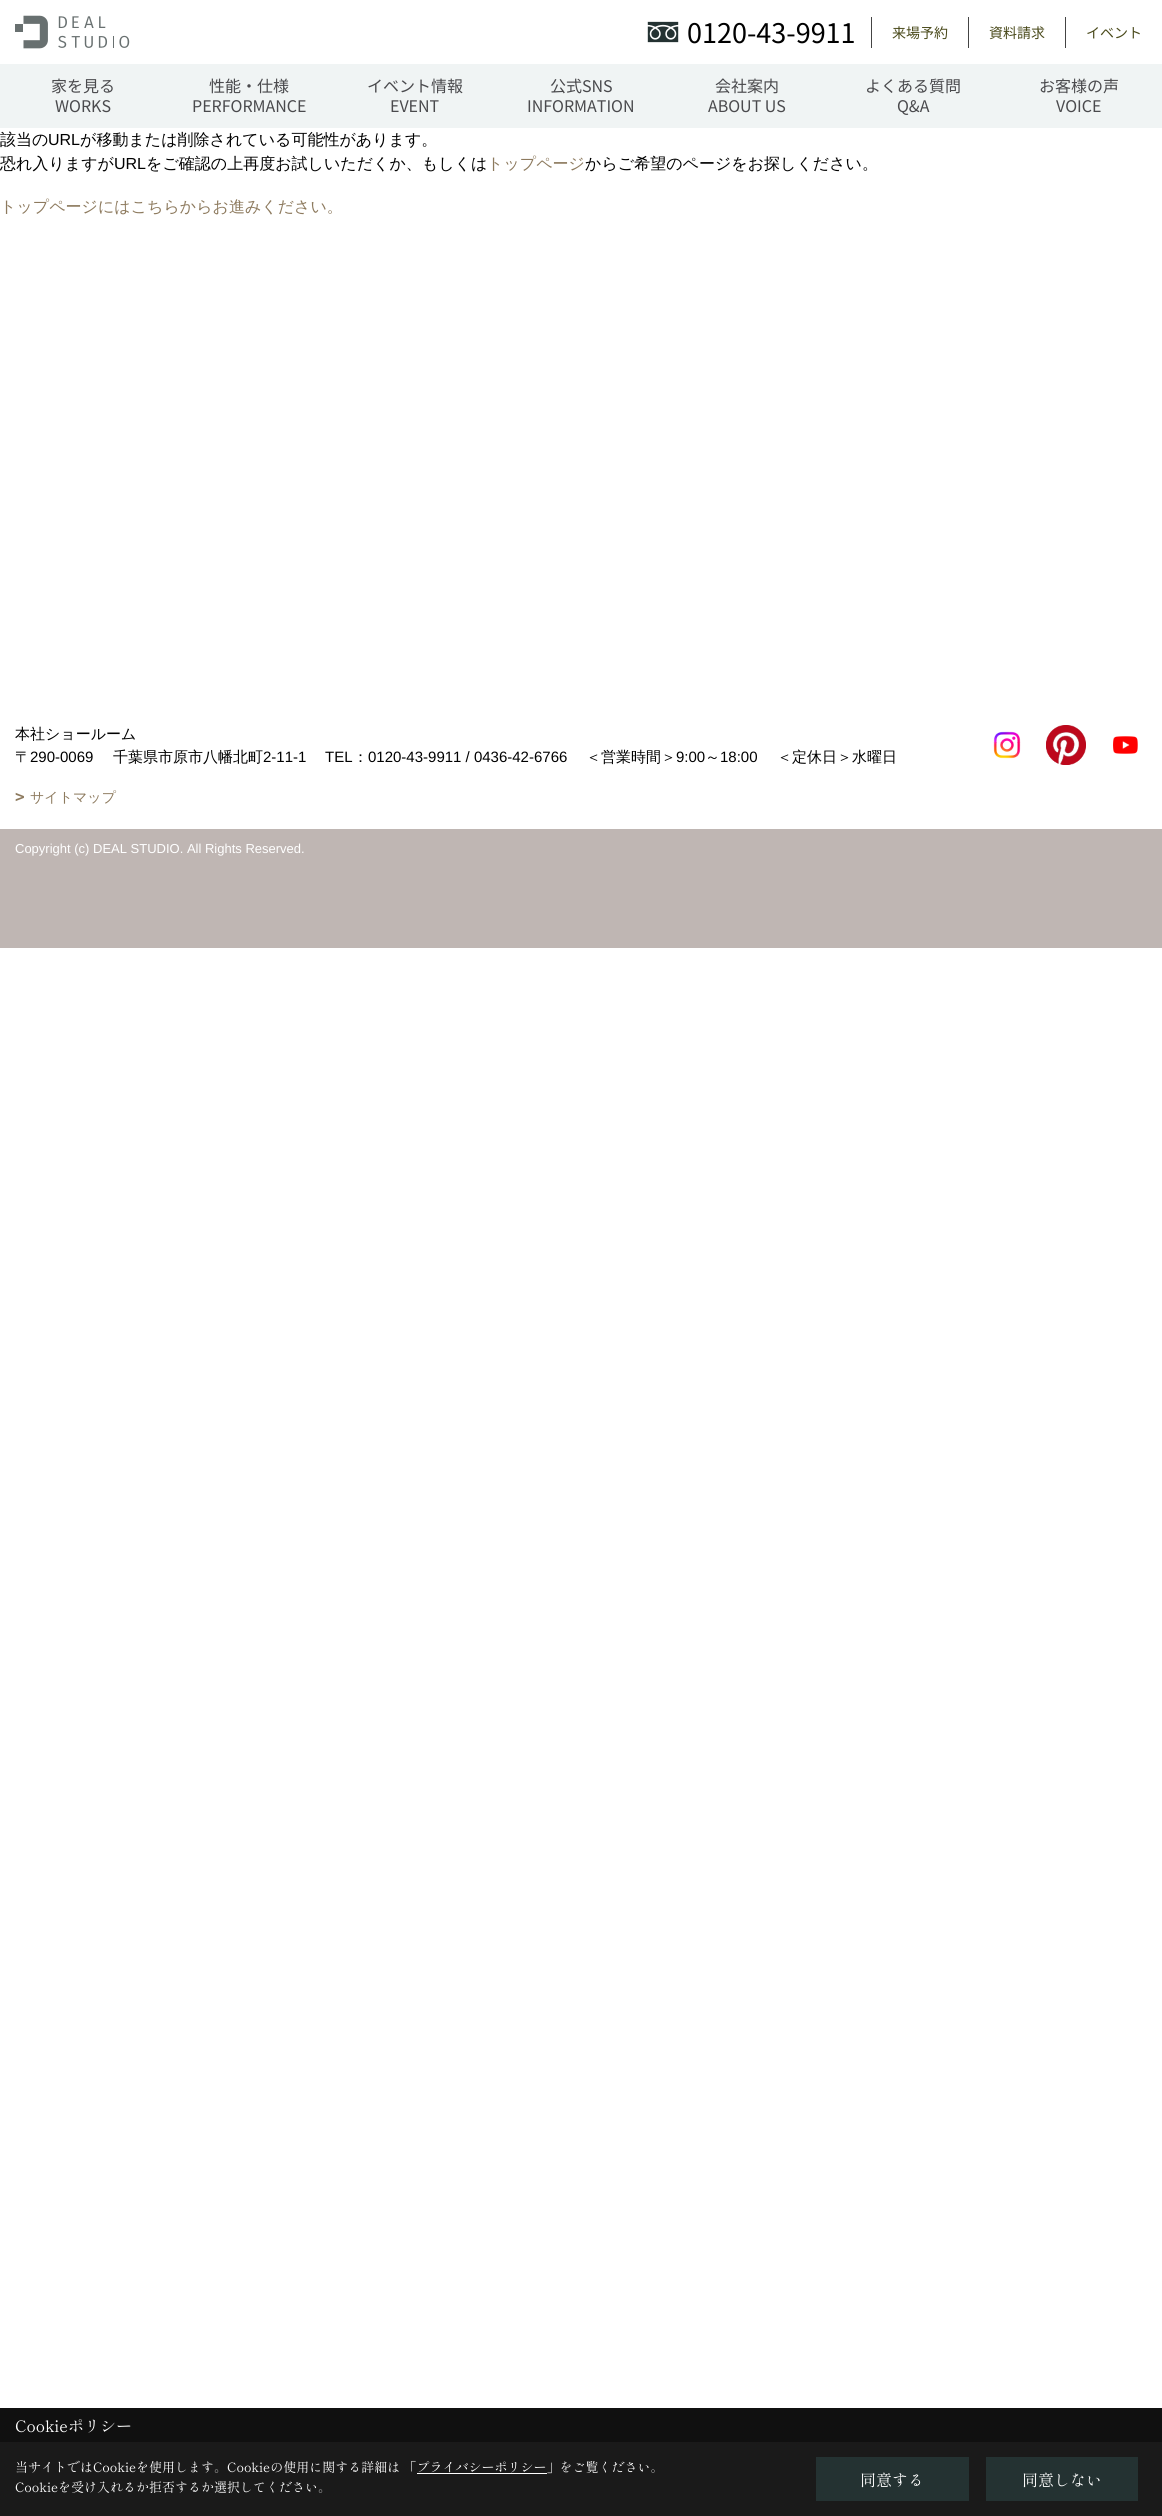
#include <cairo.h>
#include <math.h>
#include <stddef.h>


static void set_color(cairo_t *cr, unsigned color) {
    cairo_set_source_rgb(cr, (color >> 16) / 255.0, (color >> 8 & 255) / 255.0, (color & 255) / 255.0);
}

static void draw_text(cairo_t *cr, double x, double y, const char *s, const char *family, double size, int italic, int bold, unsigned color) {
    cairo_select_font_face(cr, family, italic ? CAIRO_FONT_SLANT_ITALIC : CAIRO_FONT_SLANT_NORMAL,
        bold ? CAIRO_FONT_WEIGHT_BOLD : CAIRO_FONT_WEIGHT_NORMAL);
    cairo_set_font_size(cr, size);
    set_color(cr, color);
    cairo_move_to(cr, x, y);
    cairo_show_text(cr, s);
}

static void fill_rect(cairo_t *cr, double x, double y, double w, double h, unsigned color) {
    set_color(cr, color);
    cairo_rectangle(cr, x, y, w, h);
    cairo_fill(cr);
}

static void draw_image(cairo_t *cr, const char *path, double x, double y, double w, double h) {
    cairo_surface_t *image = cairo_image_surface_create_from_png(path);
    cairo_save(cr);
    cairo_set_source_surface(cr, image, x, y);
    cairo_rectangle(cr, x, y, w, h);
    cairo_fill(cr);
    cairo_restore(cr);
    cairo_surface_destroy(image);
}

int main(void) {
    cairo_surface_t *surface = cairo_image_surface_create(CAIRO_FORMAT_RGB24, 1162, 2516);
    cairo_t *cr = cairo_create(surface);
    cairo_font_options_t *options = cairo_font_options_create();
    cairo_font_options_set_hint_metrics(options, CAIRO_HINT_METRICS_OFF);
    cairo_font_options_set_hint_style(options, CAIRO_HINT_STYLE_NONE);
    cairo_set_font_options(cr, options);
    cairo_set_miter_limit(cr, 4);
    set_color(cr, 0xFFFFFF);
    cairo_paint(cr);
    draw_image(cr, "assets/img1.png", 15, 15, 115, 34);
    draw_image(cr, "assets/img2.png", 647, 21, 32, 22);
    draw_text(cr, 687, 43, "0120-43-9911", "Noto Sans JP Thin", 27, 0, 0, 0x000000);
    fill_rect(cr, 871, 17, 1, 31, 0x444444);
    draw_text(cr, 892, 38, "来場予約", "Noto Sans JP Thin", 14, 0, 0, 0x4A4A1B);
    fill_rect(cr, 968, 17, 1, 31, 0x444444);
    draw_text(cr, 989, 38, "資料請求", "Noto Sans JP Thin", 14, 0, 0, 0x4A4A1B);
    fill_rect(cr, 1065, 17, 1, 31, 0x444444);
    draw_text(cr, 1086, 38, "イベント", "Noto Sans JP Thin", 14, 0, 0, 0x4A4A1B);
    fill_rect(cr, 0, 64, 1162, 64, 0xF0F4F4);
    draw_text(cr, 51, 92, "家を見る", "Noto Sans JP Thin", 16, 0, 0, 0x4A4A4D);
    draw_text(cr, 55, 112, "WORKS", "Noto Sans JP Thin", 16, 0, 0, 0x4A4A4D);
    draw_text(cr, 209, 92, "性能・仕様", "Noto Sans JP Thin", 16, 0, 0, 0x4A4A4D);
    draw_text(cr, 192, 112, "PERFORMANCE", "Noto Sans JP Thin", 16, 0, 0, 0x4A4A4D);
    draw_text(cr, 367, 92, "イベント情報", "Noto Sans JP Thin", 16, 0, 0, 0x4A4A4D);
    draw_text(cr, 390, 112, "EVENT", "Noto Sans JP Thin", 16, 0, 0, 0x4A4A4D);
    draw_text(cr, 550, 92, "公式SNS", "Noto Sans JP Thin", 16, 0, 0, 0x4A4A4D);
    draw_text(cr, 527, 112, "INFORMATION", "Noto Sans JP Thin", 16, 0, 0, 0x4A4A4D);
    draw_text(cr, 715, 92, "会社案内", "Noto Sans JP Thin", 16, 0, 0, 0x4A4A4D);
    draw_text(cr, 708, 112, "ABOUT US", "Noto Sans JP Thin", 16, 0, 0, 0x4A4A4D);
    draw_text(cr, 865, 92, "よくある質問", "Noto Sans JP Thin", 16, 0, 0, 0x4A4A4D);
    draw_text(cr, 897, 112, "Q&A", "Noto Sans JP Thin", 16, 0, 0, 0x4A4A4D);
    draw_text(cr, 1039, 92, "お客様の声", "Noto Sans JP Thin", 16, 0, 0, 0x4A4A4D);
    draw_text(cr, 1056, 112, "VOICE", "Noto Sans JP Thin", 16, 0, 0, 0x4A4A4D);
    draw_text(cr, 0, 145, "該当の", "WenQuanYi Zen Hei Medium", 16, 0, 0, 0x000000);
    draw_text(cr, 48, 145, "URL", "Liberation Sans", 16, 0, 0, 0x000000);
    draw_text(cr, 80, 145, "が移動または削除されている可能性があります。", "WenQuanYi Zen Hei Medium", 16, 0, 0, 0x000000);
    draw_text(cr, 0, 169, "恐れ入りますが", "WenQuanYi Zen Hei Medium", 16, 0, 0, 0x000000);
    draw_text(cr, 114, 169, "URL", "Liberation Sans", 16, 0, 0, 0x000000);
    draw_text(cr, 146, 169, "をご確認の上再度お試しいただくか、もしくは", "WenQuanYi Zen Hei Medium", 16, 0, 0, 0x000000);
    draw_text(cr, 487, 169, "トップページ", "WenQuanYi Zen Hei Medium", 16, 0, 0, 0x8D7A5E);
    draw_text(cr, 585, 169, "からご希望のページをお探しください。", "WenQuanYi Zen Hei Medium", 16, 0, 0, 0x000000);
    draw_text(cr, 0, 212, "トップページにはこちらからお進みください。", "WenQuanYi Zen Hei Medium", 16, 0, 0, 0x8D7A5E);
    draw_text(cr, 15, 739, "本社ショールーム", "WenQuanYi Zen Hei Medium", 15, 0, 0, 0x000000);
    draw_text(cr, 15, 762, "〒", "WenQuanYi Zen Hei Medium", 15, 0, 0, 0x000000);
    draw_text(cr, 30, 762, "290-0069", "Liberation Sans", 15, 0, 0, 0x000000);
    draw_text(cr, 113, 762, "千葉県市原市八幡北町", "WenQuanYi Zen Hei Medium", 15, 0, 0, 0x000000);
    draw_text(cr, 263, 762, "2-11-1", "Liberation Sans", 15, 0, 0, 0x000000);
    draw_text(cr, 325, 762, "TEL", "Liberation Sans", 15, 0, 0, 0x000000);
    draw_text(cr, 353, 762, "：", "WenQuanYi Zen Hei Medium", 15, 0, 0, 0x000000);
    draw_text(cr, 368, 762, "0120-43-9911 / 0436-42-6766", "Liberation Sans", 15, 0, 0, 0x000000);
    draw_text(cr, 586, 762, "＜営業時間＞", "WenQuanYi Zen Hei Medium", 15, 0, 0, 0x000000);
    draw_text(cr, 676, 762, "9:00", "Liberation Sans", 15, 0, 0, 0x000000);
    draw_text(cr, 705, 762, "～", "WenQuanYi Zen Hei Medium", 15, 0, 0, 0x000000);
    draw_text(cr, 720, 762, "18:00", "Liberation Sans", 15, 0, 0, 0x000000);
    draw_text(cr, 777, 762, "＜定休日＞水曜日", "WenQuanYi Zen Hei Medium", 15, 0, 0, 0x000000);
    draw_image(cr, "assets/img3.png", 993, 731, 28, 28);
    draw_image(cr, "assets/img4.png", 1046, 725, 40, 40);
    draw_image(cr, "assets/img5.png", 1113, 736, 25, 18);
    draw_text(cr, 15, 802, ">", "DejaVu Sans Mono", 16, 0, 1, 0x8D7A5E);
    draw_text(cr, 30, 802, "サイトマップ", "WenQuanYi Zen Hei Medium", 14, 0, 0, 0x8D7A5E);
    fill_rect(cr, 0, 829, 1162, 119, 0xBFB6B3);
    draw_text(cr, 15, 853, "Copyright (c) DEAL STUDIO. All Rights Reserved.", "Liberation Sans", 13, 0, 0, 0xFFFFFF);
    fill_rect(cr, 0, 2408, 1162, 34, 0x101010);
    draw_text(cr, 15, 2432, "Cookieポリシー", "Shippori Mincho", 16, 0, 0, 0xFFFFFF);
    fill_rect(cr, 0, 2442, 1162, 74, 0x1A1A1A);
    draw_text(cr, 15, 2472, "当サイトではCookieを使用します。Cookieの使用に関する詳細は 「プライバシーポリシー」をご覧ください。", "Shippori Mincho", 13, 0, 0, 0xFFFFFF);
    fill_rect(cr, 417, 2473, 130, 1, 0xFFFFFF);
    draw_text(cr, 15, 2492, "Cookieを受け入れるか拒否するか選択してください。", "Shippori Mincho", 13, 0, 0, 0xFFFFFF);
    fill_rect(cr, 816, 2457, 153, 44, 0x243232);
    draw_text(cr, 860, 2486, "同意する", "Shippori Mincho", 16, 0, 0, 0xFFFFFF);
    fill_rect(cr, 986, 2457, 152, 44, 0x243232);
    draw_text(cr, 1022, 2486, "同意しない", "Shippori Mincho", 16, 0, 0, 0xFFFFFF);
    cairo_surface_write_to_png(surface, "output.png");
    cairo_font_options_destroy(options);
    cairo_destroy(cr);
    cairo_surface_destroy(surface);
    return 0;
}
